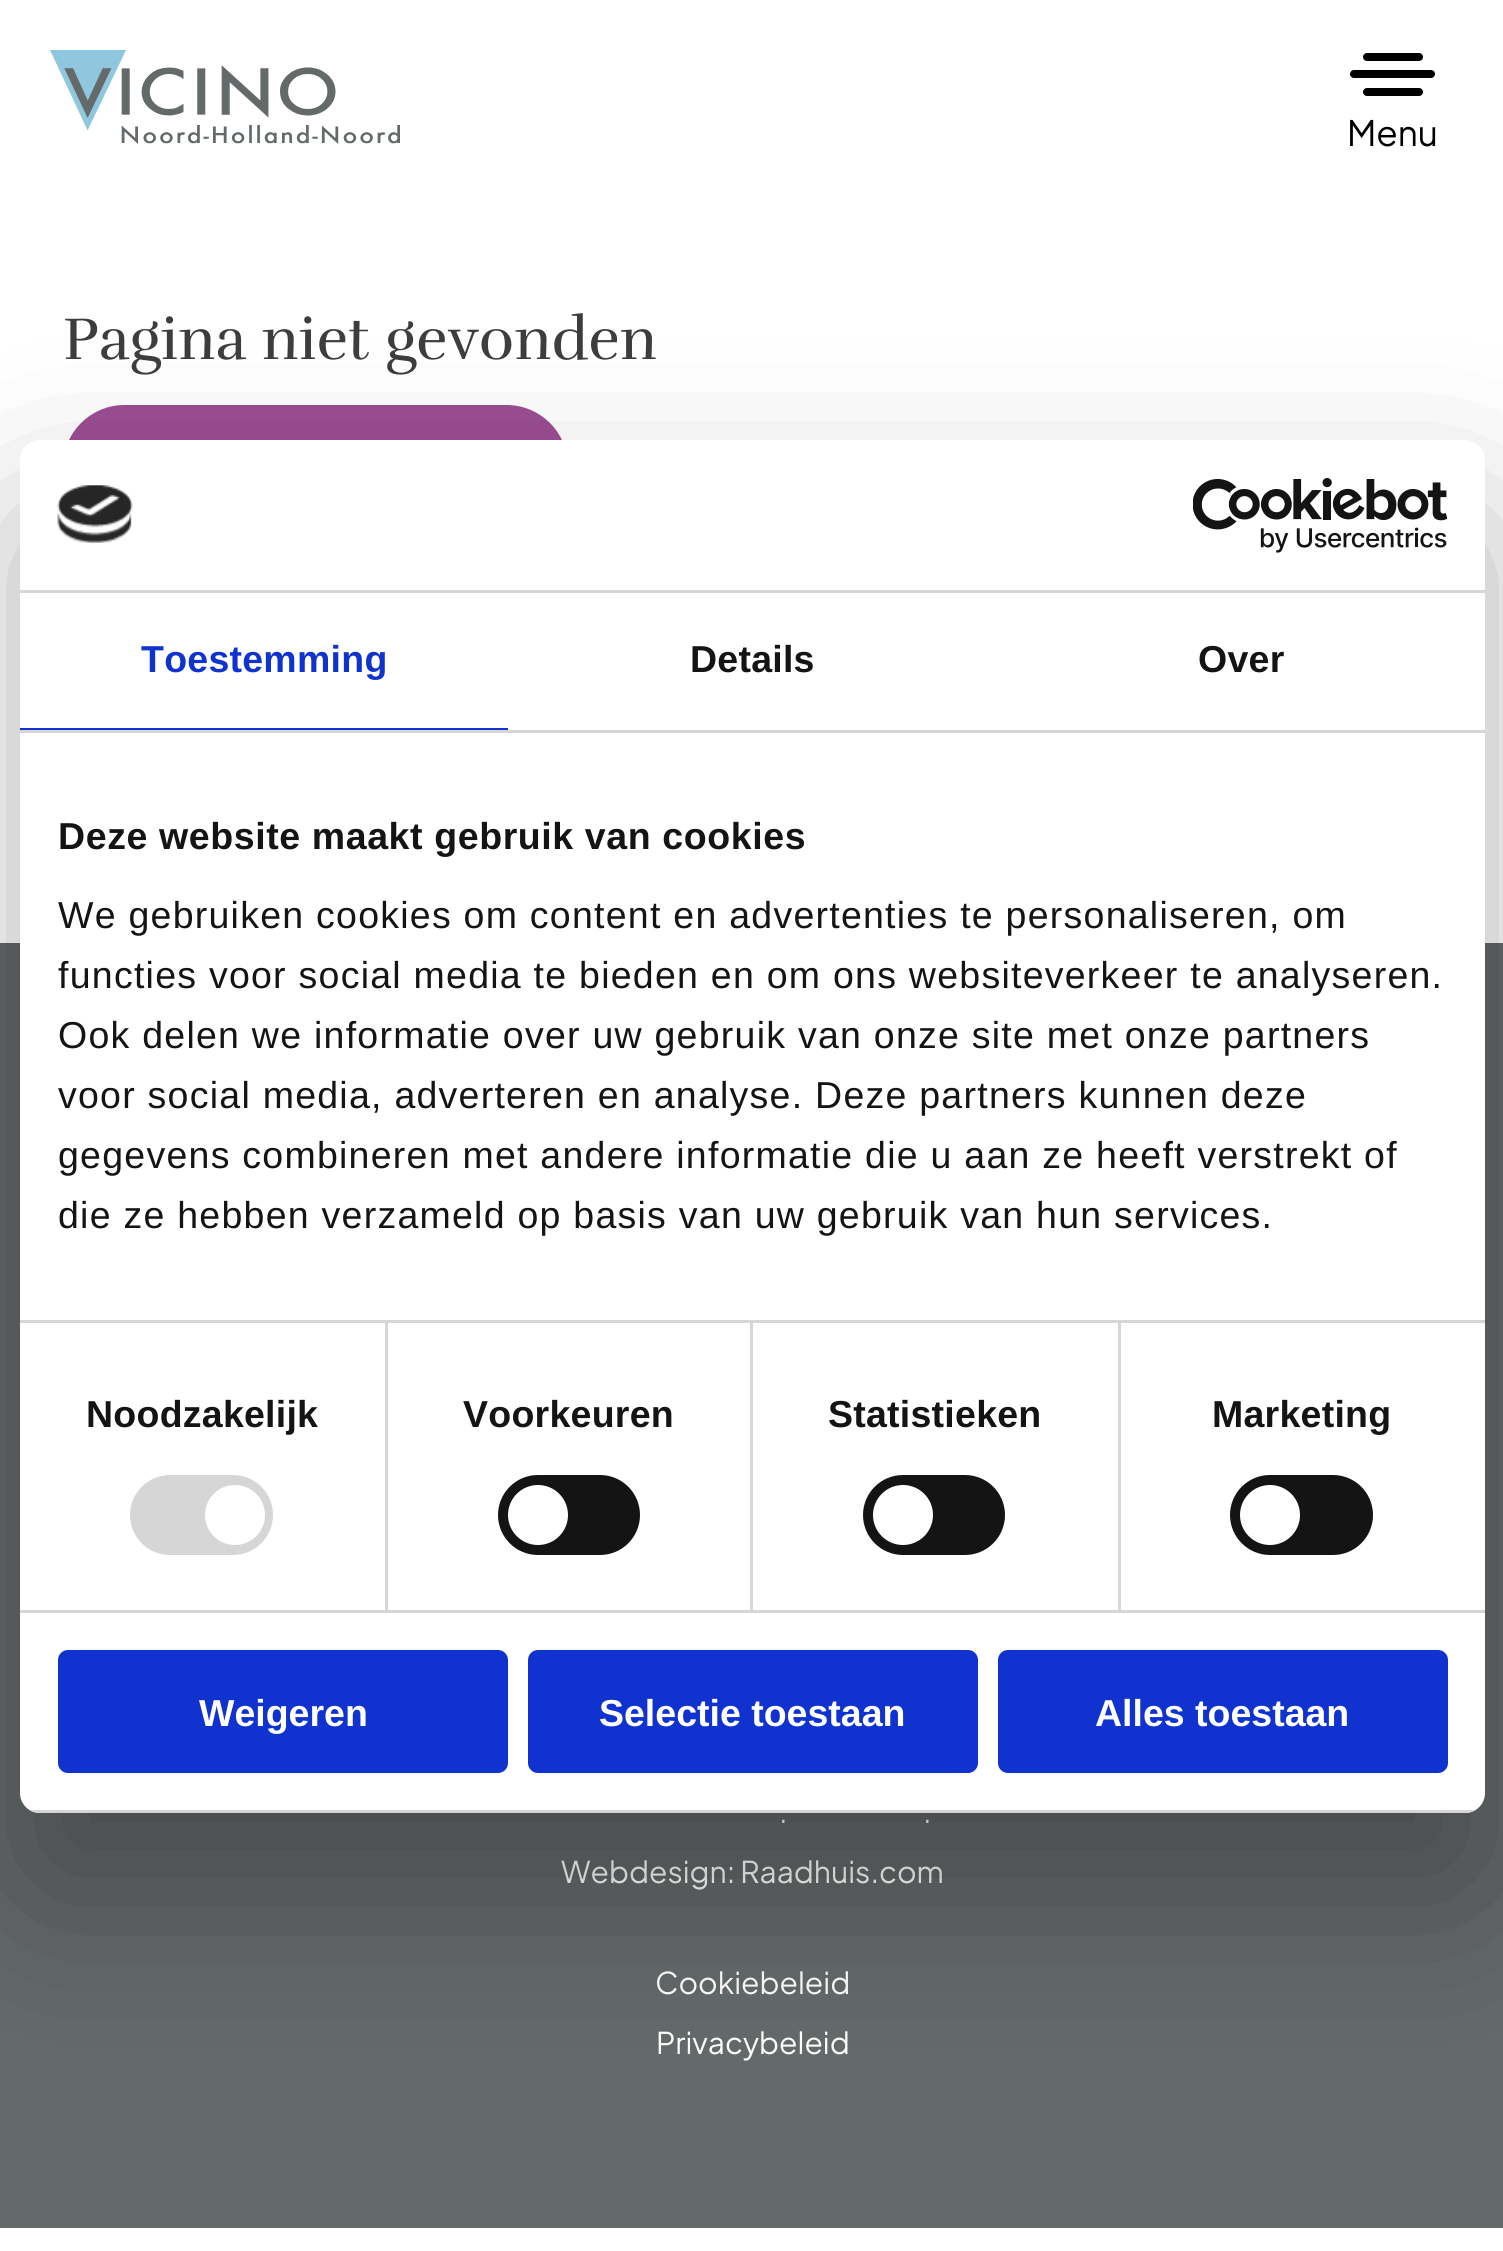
#include <cairo.h>
#include <math.h>
#include <stddef.h>


static void set_color(cairo_t *cr, unsigned color) {
    cairo_set_source_rgb(cr, (color >> 16) / 255.0, (color >> 8 & 255) / 255.0, (color & 255) / 255.0);
}

static void draw_text(cairo_t *cr, double x, double y, const char *s, const char *family, double size, int italic, int bold, unsigned color) {
    cairo_select_font_face(cr, family, italic ? CAIRO_FONT_SLANT_ITALIC : CAIRO_FONT_SLANT_NORMAL,
        bold ? CAIRO_FONT_WEIGHT_BOLD : CAIRO_FONT_WEIGHT_NORMAL);
    cairo_set_font_size(cr, size);
    set_color(cr, color);
    cairo_move_to(cr, x, y);
    cairo_show_text(cr, s);
}

static void draw_spaced(cairo_t *cr, double x, double y, const char *s, double letter, double word) {
    cairo_move_to(cr, x, y);
    while (*s) {
        char ch[5] = {0};
        int n = 0;
        do ch[n++] = *s++; while ((*s & 0xC0) == 0x80);
        cairo_show_text(cr, ch);
        cairo_rel_move_to(cr, letter + word * (*ch == ' '), 0);
    }
}

static void fill_rect(cairo_t *cr, double x, double y, double w, double h, unsigned color) {
    set_color(cr, color);
    cairo_rectangle(cr, x, y, w, h);
    cairo_fill(cr);
}

static void rounded_rect(cairo_t *cr, double x, double y, double w, double h, double r) {
    cairo_new_sub_path(cr);
    cairo_arc(cr, x + w - r, y + h - r, r, 0, M_PI / 2);
    cairo_arc(cr, x + r, y + h - r, r, M_PI / 2, M_PI);
    cairo_arc(cr, x + r, y + r, r, M_PI, 1.5 * M_PI);
    cairo_arc(cr, x + w - r, y + r, r, 1.5 * M_PI, 2 * M_PI);
    cairo_close_path(cr);
}

static void draw_shadow(cairo_t *cr, double x, double y, double w, double h, double r, double blur, double alpha) {
    cairo_push_group_with_content(cr, CAIRO_CONTENT_ALPHA);
    cairo_set_operator(cr, CAIRO_OPERATOR_SOURCE);
    for (int i = 15; i >= -15 && fmin(w, h) + blur * i / 3 > 0; i -= 2) {
        double e = blur * i / 6;
        cairo_set_source_rgba(cr, 0, 0, 0, alpha * erfc((i - 1) / 8.5) / 2);
        rounded_rect(cr, x - e, y - e, w + 2 * e, h + 2 * e, fmax(0, fmin(r + e + blur * .6, fmin(w, h) / 2 + e)));
        cairo_fill(cr);
    }
    cairo_pattern_t *soft = cairo_pop_group(cr);
    cairo_mask(cr, soft);
    cairo_pattern_destroy(soft);
}

static void draw_image(cairo_t *cr, const char *path, double x, double y, double w, double h) {
    cairo_surface_t *image = cairo_image_surface_create_from_png(path);
    cairo_save(cr);
    cairo_set_source_surface(cr, image, x, y);
    cairo_rectangle(cr, x, y, w, h);
    cairo_fill(cr);
    cairo_restore(cr);
    cairo_surface_destroy(image);
}

int main(void) {
    cairo_surface_t *surface = cairo_image_surface_create(CAIRO_FORMAT_RGB24, 1503, 2251);
    cairo_t *cr = cairo_create(surface);
    cairo_font_options_t *options = cairo_font_options_create();
    cairo_font_options_set_hint_metrics(options, CAIRO_HINT_METRICS_OFF);
    cairo_font_options_set_hint_style(options, CAIRO_HINT_STYLE_NONE);
    cairo_set_font_options(cr, options);
    cairo_set_miter_limit(cr, 4);
    set_color(cr, 0xFFFFFF);
    cairo_paint(cr);
    draw_image(cr, "assets/img1.png", 50, 50, 350, 94);
    set_color(cr, 0x000000);
    rounded_rect(cr, 1363, 88, 60, 8, 4);
    cairo_fill(cr);
    rounded_rect(cr, 1363, 53, 60, 8, 4);
    cairo_fill(cr);
    rounded_rect(cr, 1350, 70, 85, 8, 4);
    cairo_fill(cr);
    draw_text(cr, 1347, 146, "Menu", "Plus Jakarta Sans", 35, 0, 0, 0x000000);
    draw_text(cr, 63, 359, "Pagina niet gevonden", "Rufina", 60, 0, 0, 0x3D3D3D);
    set_color(cr, 0x9B4E94);
    rounded_rect(cr, 63, 405, 505, 123, 61.5);
    cairo_fill(cr);
    fill_rect(cr, 0, 943, 1503, 1285, 0x646969);
    draw_text(cr, 779, 1823, ".", "Plus Jakarta Sans", 30, 0, 0, 0xFFFFFF);
    draw_text(cr, 923, 1823, ".", "Plus Jakarta Sans", 30, 0, 0, 0xFFFFFF);
    draw_text(cr, 561, 1883, "Webdesign: Raadhuis.com", "Plus Jakarta Sans", 30, 0, 0, 0xFFFFFF);
    draw_text(cr, 655, 1994, "Cookiebeleid", "Plus Jakarta Sans", 30, 0, 0, 0xFFFFFF);
    draw_text(cr, 656, 2054, "Privacybeleid", "Plus Jakarta Sans", 30, 0, 0, 0xFFFFFF);
    set_color(cr, 0x000000);
    draw_shadow(cr, 20, 520, 1465, 1373, 20, 85, 0.3);
    set_color(cr, 0xFFFFFF);
    rounded_rect(cr, 20, 440, 1465, 1373, 20);
    cairo_fill(cr);
    fill_rect(cr, 20, 590, 1465, 3, 0xD6D6D6);
    draw_image(cr, "assets/img2.png", 57, 485, 76, 58);
    draw_image(cr, "assets/img3.png", 1193, 478, 255, 75);
    fill_rect(cr, 20, 730, 1465, 3, 0xD6D6D6);
    fill_rect(cr, 20, 728, 488, 2, 0x1032CF);
    cairo_select_font_face(cr, "Liberation Sans", CAIRO_FONT_SLANT_NORMAL, CAIRO_FONT_WEIGHT_BOLD);
    cairo_set_font_size(cr, 37.5);
    draw_spaced(cr, 141, 672, "Toestemming", 0.25, 0);
    set_color(cr, 0x141414);
    draw_spaced(cr, 690, 672, "Details", 0.25, 0);
    draw_spaced(cr, 1198, 672, "Over", 0.25, 0);
    fill_rect(cr, 20, 1320, 1465, 3, 0xD6D6D6);
    set_color(cr, 0x141414);
    draw_spaced(cr, 58, 849, "Deze website maakt gebruik van cookies", 0.6, 0);
    cairo_select_font_face(cr, "Liberation Sans", CAIRO_FONT_SLANT_NORMAL, CAIRO_FONT_WEIGHT_NORMAL);
    draw_spaced(cr, 58, 928, "We gebruiken cookies om content en advertenties te personaliseren, om", 1.25, 0);
    draw_spaced(cr, 58, 988, "functies voor social media te bieden en om ons websiteverkeer te analyseren.", 1.25, 0);
    draw_spaced(cr, 58, 1048, "Ook delen we informatie over uw gebruik van onze site met onze partners", 1.25, 0);
    draw_spaced(cr, 58, 1108, "voor social media, adverteren en analyse. Deze partners kunnen deze", 1.25, 0);
    draw_spaced(cr, 58, 1168, "gegevens combineren met andere informatie die u aan ze heeft verstrekt of", 1.25, 0);
    draw_spaced(cr, 58, 1228, "die ze hebben verzameld op basis van uw gebruik van hun services.", 1.25, 0);
    fill_rect(cr, 20, 1610, 1465, 3, 0xD6D6D6);
    fill_rect(cr, 385, 1323, 3, 287, 0xD6D6D6);
    cairo_select_font_face(cr, "Liberation Sans", CAIRO_FONT_SLANT_NORMAL, CAIRO_FONT_WEIGHT_BOLD);
    set_color(cr, 0x141414);
    draw_spaced(cr, 86, 1427, "Noodzakelijk", 0.25, 0);
    set_color(cr, 0xD6D6D6);
    rounded_rect(cr, 130, 1475, 143, 80, 40);
    cairo_fill(cr);
    set_color(cr, 0xFFFFFF);
    cairo_arc(cr, 235, 1515, 30, 0, 2 * M_PI);
    cairo_fill(cr);
    fill_rect(cr, 750, 1323, 3, 287, 0xD6D6D6);
    set_color(cr, 0x141414);
    draw_spaced(cr, 463, 1427, "Voorkeuren", 0.25, 0);
    rounded_rect(cr, 498, 1475, 142, 80, 40);
    cairo_fill(cr);
    set_color(cr, 0xFFFFFF);
    cairo_arc(cr, 538, 1515, 30, 0, 2 * M_PI);
    cairo_fill(cr);
    fill_rect(cr, 1118, 1323, 3, 287, 0xD6D6D6);
    set_color(cr, 0x141414);
    draw_spaced(cr, 828, 1427, "Statistieken", 0.25, 0);
    rounded_rect(cr, 863, 1475, 142, 80, 40);
    cairo_fill(cr);
    set_color(cr, 0xFFFFFF);
    cairo_arc(cr, 903, 1515, 30, 0, 2 * M_PI);
    cairo_fill(cr);
    set_color(cr, 0x141414);
    draw_spaced(cr, 1212, 1427, "Marketing", 0.25, 0);
    rounded_rect(cr, 1230, 1475, 143, 80, 40);
    cairo_fill(cr);
    set_color(cr, 0xFFFFFF);
    cairo_arc(cr, 1270, 1515, 30, 0, 2 * M_PI);
    cairo_fill(cr);
    cairo_save(cr);
    rounded_rect(cr, 20, 440, 1465, 1373, 20);
    cairo_clip(cr);
    fill_rect(cr, 29, 1810, 1447, 3, 0xD6D6D6);
    cairo_restore(cr);
    set_color(cr, 0x1032CF);
    rounded_rect(cr, 60.5, 1652.5, 445, 118, 7.5);
    cairo_fill_preserve(cr);
    cairo_set_line_width(cr, 5);
    cairo_stroke(cr);
    draw_text(cr, 199, 1726, "Weigeren", "Liberation Sans", 37.5, 0, 1, 0xFFFFFF);
    set_color(cr, 0x1032CF);
    rounded_rect(cr, 530.5, 1652.5, 445, 118, 7.5);
    cairo_fill_preserve(cr);
    cairo_stroke(cr);
    draw_text(cr, 599, 1726, "Selectie toestaan", "Liberation Sans", 37.5, 0, 1, 0xFFFFFF);
    set_color(cr, 0x1032CF);
    rounded_rect(cr, 1000.5, 1652.5, 445, 118, 7.5);
    cairo_fill_preserve(cr);
    cairo_stroke(cr);
    draw_text(cr, 1095, 1726, "Alles toestaan", "Liberation Sans", 37.5, 0, 1, 0xFFFFFF);
    cairo_surface_write_to_png(surface, "output.png");
    cairo_font_options_destroy(options);
    cairo_destroy(cr);
    cairo_surface_destroy(surface);
    return 0;
}
